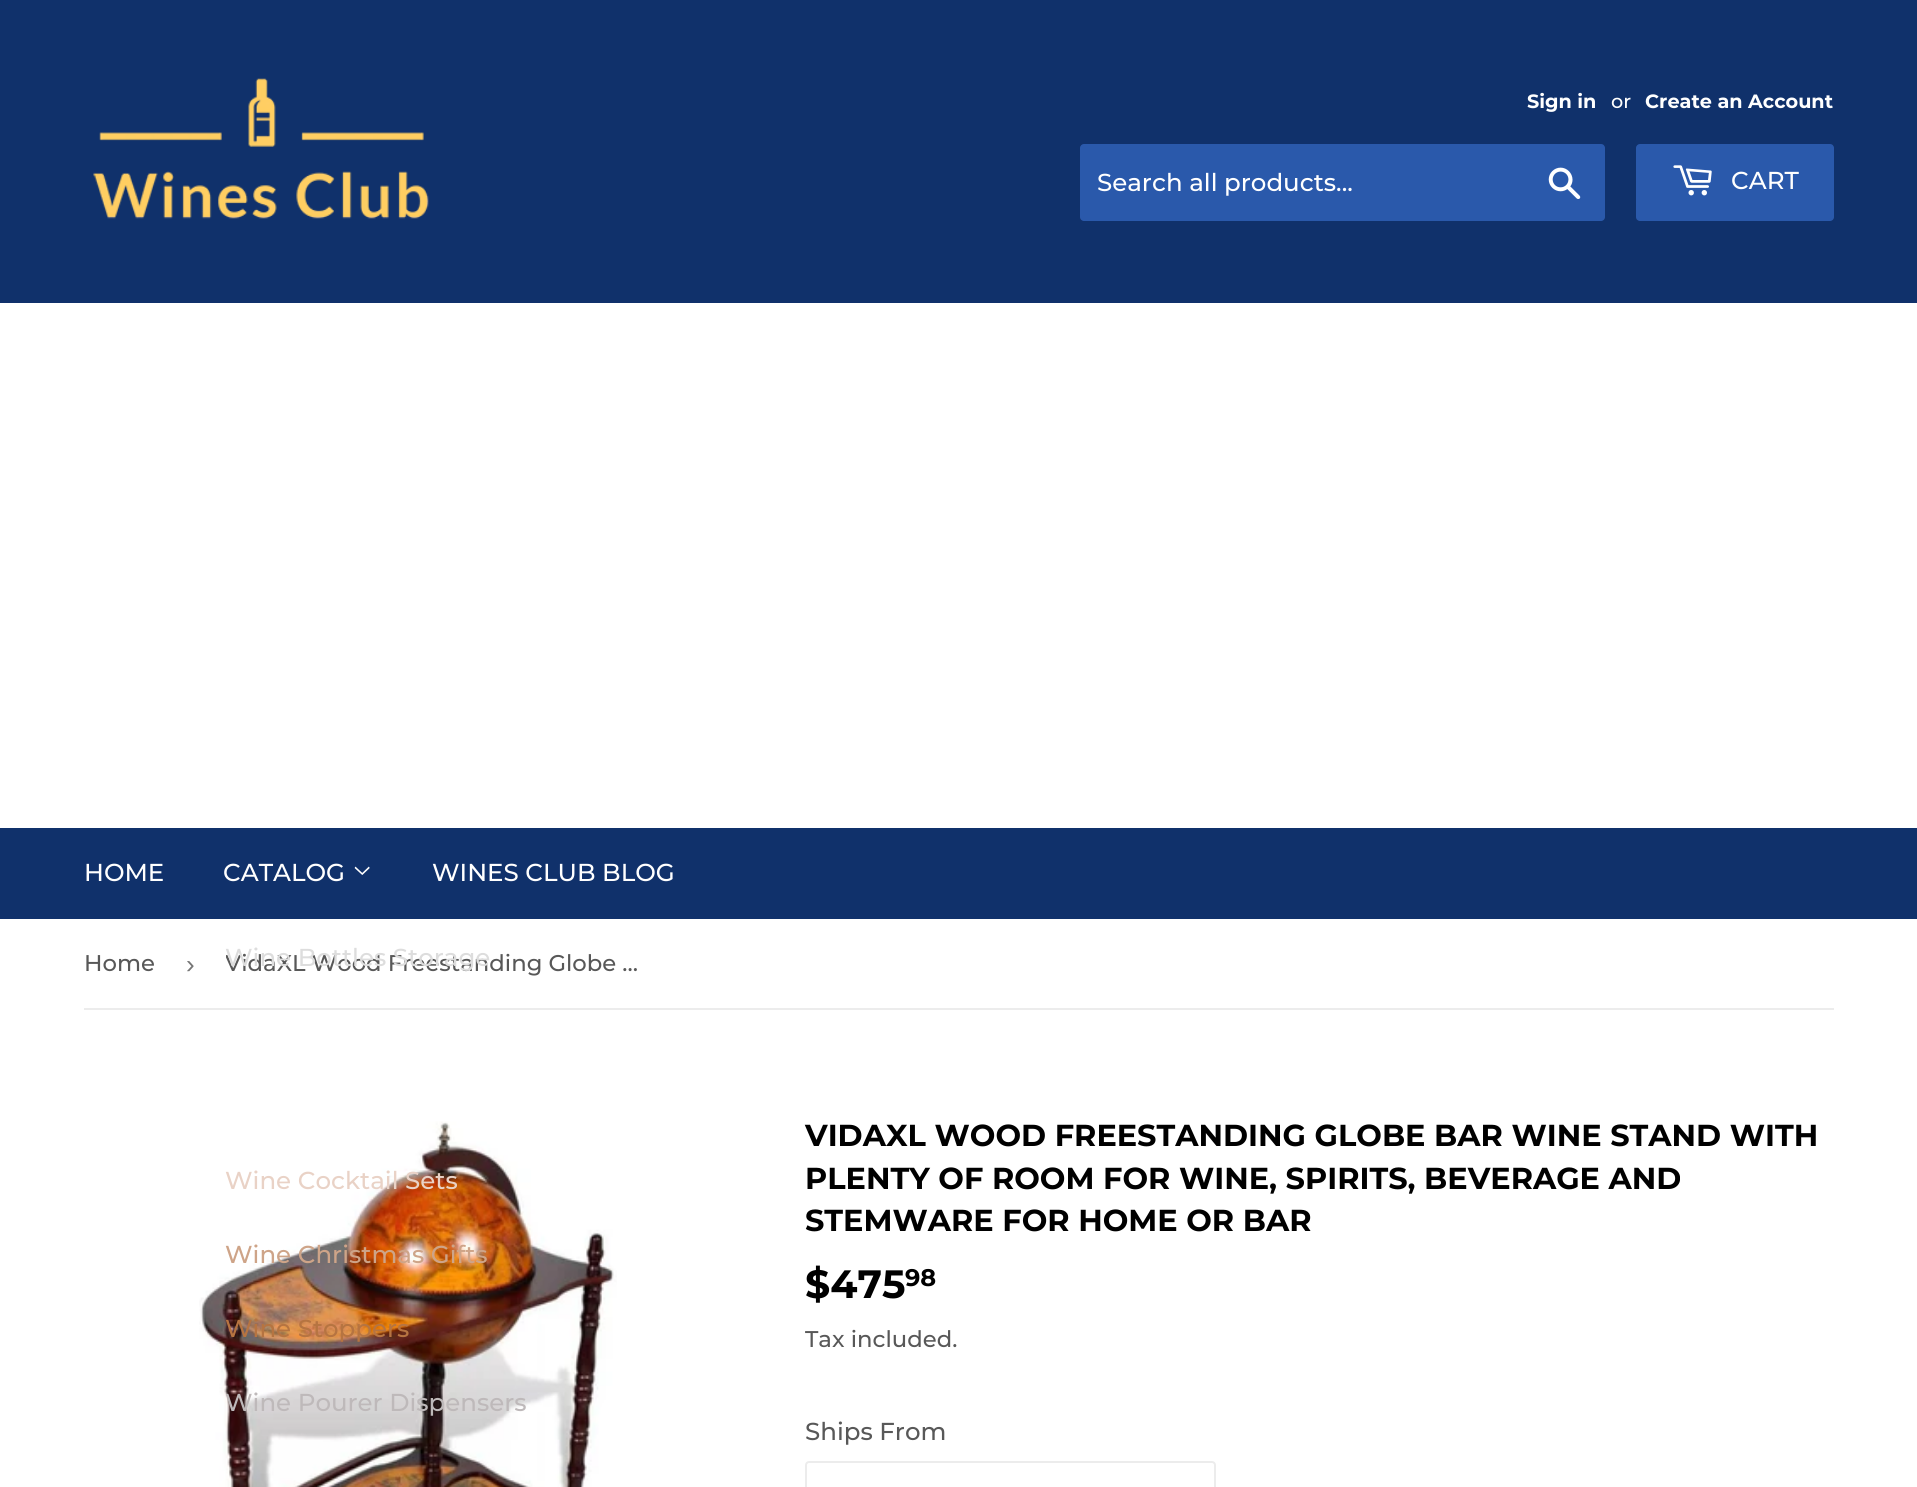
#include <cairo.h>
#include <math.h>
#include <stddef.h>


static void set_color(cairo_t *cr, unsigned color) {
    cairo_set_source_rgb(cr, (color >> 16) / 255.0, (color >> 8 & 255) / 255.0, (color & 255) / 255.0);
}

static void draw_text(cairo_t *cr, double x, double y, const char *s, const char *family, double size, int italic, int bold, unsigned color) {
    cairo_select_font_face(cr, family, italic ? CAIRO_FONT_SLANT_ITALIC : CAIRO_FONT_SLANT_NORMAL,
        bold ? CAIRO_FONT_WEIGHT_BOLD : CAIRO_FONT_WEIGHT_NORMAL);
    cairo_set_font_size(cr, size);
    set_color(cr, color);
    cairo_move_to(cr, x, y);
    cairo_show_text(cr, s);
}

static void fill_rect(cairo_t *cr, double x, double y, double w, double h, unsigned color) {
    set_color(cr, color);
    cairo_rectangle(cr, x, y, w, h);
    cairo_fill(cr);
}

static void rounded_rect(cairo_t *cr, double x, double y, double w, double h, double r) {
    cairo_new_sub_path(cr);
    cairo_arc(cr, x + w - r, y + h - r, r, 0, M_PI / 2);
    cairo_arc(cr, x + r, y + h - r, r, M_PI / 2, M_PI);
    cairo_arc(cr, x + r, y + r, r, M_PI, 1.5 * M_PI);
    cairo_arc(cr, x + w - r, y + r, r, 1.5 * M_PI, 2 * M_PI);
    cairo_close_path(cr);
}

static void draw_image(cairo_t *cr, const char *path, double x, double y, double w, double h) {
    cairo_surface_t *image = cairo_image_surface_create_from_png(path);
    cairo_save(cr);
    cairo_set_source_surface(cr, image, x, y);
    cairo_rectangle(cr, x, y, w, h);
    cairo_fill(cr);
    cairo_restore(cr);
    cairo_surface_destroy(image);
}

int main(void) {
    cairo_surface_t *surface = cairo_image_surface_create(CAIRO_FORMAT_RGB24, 1917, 1487);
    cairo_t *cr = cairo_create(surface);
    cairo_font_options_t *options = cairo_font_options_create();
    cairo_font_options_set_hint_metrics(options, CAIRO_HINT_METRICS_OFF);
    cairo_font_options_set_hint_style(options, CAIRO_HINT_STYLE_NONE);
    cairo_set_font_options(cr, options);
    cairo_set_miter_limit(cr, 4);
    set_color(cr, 0xFFFFFF);
    cairo_paint(cr);
    fill_rect(cr, 0, 0, 1917, 303, 0x10316B);
    draw_image(cr, "assets/img1.png", 93, 78, 336, 141);
    draw_text(cr, 1527, 108, "Sign in", "Montserrat", 19.25, 0, 1, 0xFFFFFF);
    draw_text(cr, 1611, 108, "or", "Montserrat Medium", 19.25, 0, 0, 0xFFFFFF);
    draw_text(cr, 1645, 108, "Create an Account", "Montserrat", 19.25, 0, 1, 0xFFFFFF);
    set_color(cr, 0x2A59AB);
    rounded_rect(cr, 1080, 144, 525, 77, 4);
    cairo_fill(cr);
    draw_text(cr, 1097, 191, "Search all products...", "Montserrat Medium", 24.5, 0, 0, 0xFFFFFF);
    draw_image(cr, "assets/img2.png", 1548, 167, 33, 32);
    set_color(cr, 0x2A59AB);
    rounded_rect(cr, 1636, 144, 198, 77, 4);
    cairo_fill(cr);
    draw_image(cr, "assets/img3.png", 1673, 165, 39, 31);
    draw_text(cr, 1731, 189, "CART", "Montserrat Medium", 24.5, 0, 0, 0xFFFFFF);
    fill_rect(cr, 0, 828, 1917, 91, 0x10316B);
    draw_text(cr, 84, 881, "HOME", "Montserrat Medium", 24.5, 0, 0, 0xFFFFFF);
    draw_text(cr, 223, 881, "CATALOG", "Montserrat Medium", 24.5, 0, 0, 0xFFFFFF);
    draw_image(cr, "assets/img4.png", 354, 866, 16, 9);
    cairo_save(cr);
    cairo_rectangle(cr, 226, 919, 437, 89);
    cairo_clip(cr);
    draw_text(cr, 225, 971, "VidaXL Wood Freestanding Globe …", "Montserrat Medium", 22.75, 0, 0, 0x585858);
    cairo_restore(cr);
    draw_text(cr, 225, 966, "Wine Bottles Storage", "Montserrat Medium", 24.5, 0, 0, 0xDDDDDD);
    draw_image(cr, "assets/img5.png", 199, 1121, 418, 366);
    draw_text(cr, 225, 1189, "Wine Cocktail Sets", "Montserrat Medium", 24.5, 0, 0, 0xE9D2C6);
    draw_text(cr, 225, 1263, "Wine Christmas Gifts", "Montserrat Medium", 24.5, 0, 0, 0xCEA488);
    draw_text(cr, 225, 1337, "Wine Stoppers", "Montserrat Medium", 24.5, 0, 0, 0xB67441);
    draw_text(cr, 225, 1411, "Wine Pourer Dispensers", "Montserrat Medium", 24.5, 0, 0, 0xBEB9BA);
    draw_text(cr, 432, 881, "WINES CLUB BLOG", "Montserrat Medium", 24.5, 0, 0, 0xFFFFFF);
    fill_rect(cr, 84, 1008, 1750, 2, 0xECECEC);
    draw_text(cr, 84, 971, "Home", "Montserrat Medium", 22.75, 0, 0, 0x585858);
    draw_text(cr, 186, 973, "›", "Liberation Sans", 26, 0, 0, 0x767676);
    draw_text(cr, 805, 1146, "VIDAXL WOOD FREESTANDING GLOBE BAR WINE STAND WITH", "Montserrat", 30.35, 0, 1, 0x000000);
    draw_text(cr, 805, 1189, "PLENTY OF ROOM FOR WINE, SPIRITS, BEVERAGE AND", "Montserrat", 30.35, 0, 1, 0x000000);
    draw_text(cr, 805, 1231, "STEMWARE FOR HOME OR BAR", "Montserrat", 30.35, 0, 1, 0x000000);
    draw_text(cr, 805, 1298, "$475", "Montserrat", 39.5, 0, 1, 0x000000);
    draw_text(cr, 905, 1286, "98", "Montserrat", 24, 0, 1, 0x000000);
    draw_text(cr, 805, 1347, "Tax included.", "Montserrat Medium", 22.75, 0, 0, 0x585858);
    draw_text(cr, 805, 1440, "Ships From", "Montserrat Medium", 24.5, 0, 0, 0x585858);
    rounded_rect(cr, 806, 1462, 409, 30, 3);
    set_color(cr, 0xECECEC);
    cairo_stroke(cr);
    cairo_surface_write_to_png(surface, "output.png");
    cairo_font_options_destroy(options);
    cairo_destroy(cr);
    cairo_surface_destroy(surface);
    return 0;
}
